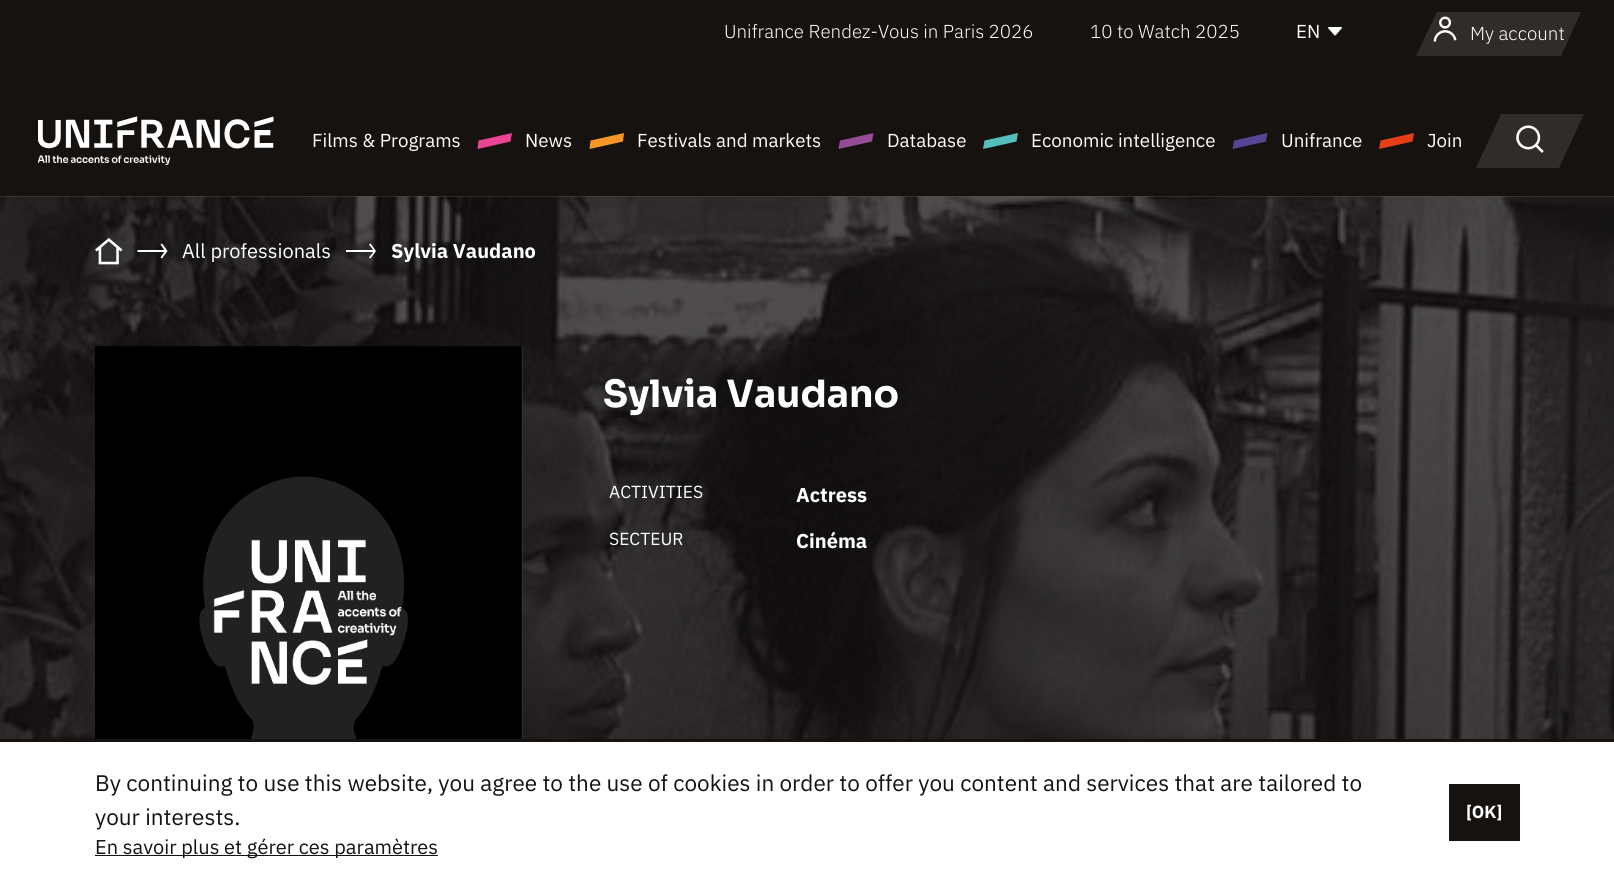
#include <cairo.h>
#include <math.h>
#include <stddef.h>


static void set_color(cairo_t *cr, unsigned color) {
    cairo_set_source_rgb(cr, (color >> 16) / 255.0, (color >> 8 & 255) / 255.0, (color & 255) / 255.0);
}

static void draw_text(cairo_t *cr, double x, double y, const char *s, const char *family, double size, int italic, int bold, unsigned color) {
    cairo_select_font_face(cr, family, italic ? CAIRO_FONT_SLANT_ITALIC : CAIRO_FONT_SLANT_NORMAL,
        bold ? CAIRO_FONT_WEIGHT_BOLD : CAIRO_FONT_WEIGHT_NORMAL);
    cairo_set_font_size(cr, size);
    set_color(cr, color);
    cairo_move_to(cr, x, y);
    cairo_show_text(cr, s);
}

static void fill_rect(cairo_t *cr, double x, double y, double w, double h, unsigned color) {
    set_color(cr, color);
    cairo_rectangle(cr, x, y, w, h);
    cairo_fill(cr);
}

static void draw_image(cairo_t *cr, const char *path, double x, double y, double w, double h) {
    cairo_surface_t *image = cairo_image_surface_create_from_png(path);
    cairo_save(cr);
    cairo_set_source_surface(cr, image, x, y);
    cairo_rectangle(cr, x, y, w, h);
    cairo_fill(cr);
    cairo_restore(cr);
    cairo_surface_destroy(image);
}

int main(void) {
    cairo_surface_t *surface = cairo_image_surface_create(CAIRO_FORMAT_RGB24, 1614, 871);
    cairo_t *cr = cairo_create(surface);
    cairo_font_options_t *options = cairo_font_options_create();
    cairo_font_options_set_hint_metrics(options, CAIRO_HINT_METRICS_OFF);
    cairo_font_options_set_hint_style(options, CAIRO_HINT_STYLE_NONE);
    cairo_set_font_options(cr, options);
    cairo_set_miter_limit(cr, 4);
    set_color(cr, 0x504D4C);
    cairo_paint(cr);
    fill_rect(cr, 0, 0, 1614, 196, 0x151210);
    draw_text(cr, 724, 38, "Unifrance Rendez-Vous in Paris 2026", "IBM Plex Sans Light", 18.75, 0, 0, 0xFFFFFF);
    draw_text(cr, 1090, 38, "10 to Watch 2025", "IBM Plex Sans Light", 18.75, 0, 0, 0xFFFFFF);
    draw_image(cr, "assets/img1.png", 1328, 27, 14, 9);
    draw_text(cr, 1296, 38, "EN", "IBM Plex Sans", 18.75, 0, 0, 0xFFFFFF);
    set_color(cr, 0x302C2A);
    cairo_new_path(cr);
    cairo_move_to(cr, 1437, 12);
    cairo_line_to(cr, 1581, 12);
    cairo_line_to(cr, 1561, 56);
    cairo_line_to(cr, 1416, 56);
    cairo_close_path(cr);
    cairo_fill(cr);
    draw_image(cr, "assets/img2.png", 1433, 16, 24, 26);
    draw_text(cr, 1470, 40, "My account", "IBM Plex Sans Light", 18.75, 0, 0, 0xFFFFFF);
    draw_image(cr, "assets/img3.png", 38, 116, 236, 49);
    draw_text(cr, 312, 147, "Films & Programs", "IBM Plex Sans", 18.75, 0, 0, 0xFFFFFF);
    set_color(cr, 0xE94591);
    cairo_new_path(cr);
    cairo_move_to(cr, 478.5, 140.5);
    cairo_line_to(cr, 512, 133);
    cairo_line_to(cr, 510.5, 141.5);
    cairo_line_to(cr, 477.5, 149);
    cairo_close_path(cr);
    cairo_fill(cr);
    draw_text(cr, 525, 147, "News", "IBM Plex Sans", 18.75, 0, 0, 0xFFFFFF);
    set_color(cr, 0xF49726);
    cairo_new_path(cr);
    cairo_move_to(cr, 590.5, 140.5);
    cairo_line_to(cr, 624, 133);
    cairo_line_to(cr, 623, 141.5);
    cairo_line_to(cr, 589.5, 149);
    cairo_close_path(cr);
    cairo_fill(cr);
    draw_text(cr, 637, 147, "Festivals and markets", "IBM Plex Sans", 18.75, 0, 0, 0xFFFFFF);
    set_color(cr, 0x954B95);
    cairo_new_path(cr);
    cairo_move_to(cr, 840, 140.5);
    cairo_line_to(cr, 873.5, 133);
    cairo_line_to(cr, 872, 141.5);
    cairo_line_to(cr, 838.5, 149);
    cairo_close_path(cr);
    cairo_fill(cr);
    draw_text(cr, 887, 147, "Database", "IBM Plex Sans", 18.75, 0, 0, 0xFFFFFF);
    set_color(cr, 0x55BDBA);
    cairo_new_path(cr);
    cairo_move_to(cr, 984.5, 140.5);
    cairo_line_to(cr, 1018, 133);
    cairo_line_to(cr, 1016.5, 141.5);
    cairo_line_to(cr, 983, 149);
    cairo_close_path(cr);
    cairo_fill(cr);
    draw_text(cr, 1031, 147, "Economic intelligence", "IBM Plex Sans", 18.75, 0, 0, 0xFFFFFF);
    set_color(cr, 0x554593);
    cairo_new_path(cr);
    cairo_move_to(cr, 1234, 140.5);
    cairo_line_to(cr, 1267.5, 133);
    cairo_line_to(cr, 1266, 141.5);
    cairo_line_to(cr, 1232.5, 149);
    cairo_close_path(cr);
    cairo_fill(cr);
    draw_text(cr, 1281, 147, "Unifrance", "IBM Plex Sans", 18.75, 0, 0, 0xFFFFFF);
    set_color(cr, 0xE73E1A);
    cairo_new_path(cr);
    cairo_move_to(cr, 1380.5, 140.5);
    cairo_line_to(cr, 1414, 133);
    cairo_line_to(cr, 1412.5, 141.5);
    cairo_line_to(cr, 1379, 149);
    cairo_close_path(cr);
    cairo_fill(cr);
    draw_text(cr, 1427, 147, "Join", "IBM Plex Sans", 18.75, 0, 0, 0xFFFFFF);
    set_color(cr, 0x2F2C2A);
    cairo_new_path(cr);
    cairo_move_to(cr, 1501, 114);
    cairo_line_to(cr, 1584, 114);
    cairo_line_to(cr, 1559, 168);
    cairo_line_to(cr, 1476, 168);
    cairo_close_path(cr);
    cairo_fill(cr);
    draw_image(cr, "assets/img4.png", 1516, 125, 28, 28);
    draw_image(cr, "assets/img5.png", 0, 196, 1614, 543);
    draw_image(cr, "assets/img6.png", 95, 238, 28, 27);
    set_color(cr, 0xFFFFFF);
    cairo_new_path(cr);
    cairo_move_to(cr, 137.5, 250);
    cairo_line_to(cr, 137.5, 252);
    cairo_line_to(cr, 166.5, 252);
    cairo_line_to(cr, 166.5, 250);
    cairo_close_path(cr);
    cairo_move_to(cr, 162, 243.5);
    cairo_line_to(cr, 160.5, 244.5);
    cairo_line_to(cr, 165, 251);
    cairo_line_to(cr, 160.5, 257.5);
    cairo_line_to(cr, 162, 258.5);
    cairo_line_to(cr, 167.5, 251);
    cairo_close_path(cr);
    cairo_fill(cr);
    draw_text(cr, 182, 258, "All professionals", "IBM Plex Sans", 20, 0, 0, 0xFFFFFF);
    cairo_new_path(cr);
    cairo_move_to(cr, 346, 250);
    cairo_line_to(cr, 346, 252);
    cairo_line_to(cr, 375, 252);
    cairo_line_to(cr, 375, 250);
    cairo_close_path(cr);
    cairo_move_to(cr, 370.5, 243.5);
    cairo_line_to(cr, 369, 244.5);
    cairo_line_to(cr, 374, 251);
    cairo_line_to(cr, 369, 257.5);
    cairo_line_to(cr, 370.5, 258.5);
    cairo_line_to(cr, 376, 251);
    cairo_close_path(cr);
    cairo_fill(cr);
    draw_text(cr, 391, 258, "Sylvia Vaudano", "IBM Plex Sans", 20, 0, 1, 0xFFFFFF);
    draw_image(cr, "assets/img7.png", 95, 346, 428, 393);
    draw_text(cr, 603, 407, "Sylvia Vaudano", "Sora", 37.5, 0, 1, 0xFFFFFF);
    draw_text(cr, 609, 498, "ACTIVITIES", "IBM Plex Sans", 17.5, 0, 0, 0xFFFFFF);
    draw_text(cr, 796, 502, "Actress", "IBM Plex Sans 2", 20, 0, 1, 0xFFFFFF);
    draw_text(cr, 609, 545, "SECTEUR", "IBM Plex Sans", 17.5, 0, 0, 0xFFFFFF);
    draw_text(cr, 796, 548, "Cinéma", "IBM Plex Sans 2", 20, 0, 1, 0xFFFFFF);
    fill_rect(cr, 0, 742, 1614, 129, 0xFFFFFF);
    fill_rect(cr, 0, 739, 1614, 3, 0x151210);
    draw_text(cr, 95, 791, "By continuing to use this website, you agree to the use of cookies in order to offer you content and services that are tailored to", "IBM Plex Sans", 22.5, 0, 0, 0x151210);
    draw_text(cr, 95, 825, "your interests.", "IBM Plex Sans", 22.5, 0, 0, 0x151210);
    fill_rect(cr, 95, 855, 343, 1, 0x151210);
    draw_text(cr, 95, 854, "En savoir plus et gérer ces paramètres", "IBM Plex Sans", 20, 0, 0, 0x151210);
    fill_rect(cr, 1449, 784, 71, 57, 0x151210);
    draw_text(cr, 1466, 818, "[OK]", "IBM Plex Sans", 17.5, 0, 1, 0xFFFFFF);
    cairo_surface_write_to_png(surface, "output.png");
    cairo_font_options_destroy(options);
    cairo_destroy(cr);
    cairo_surface_destroy(surface);
    return 0;
}
